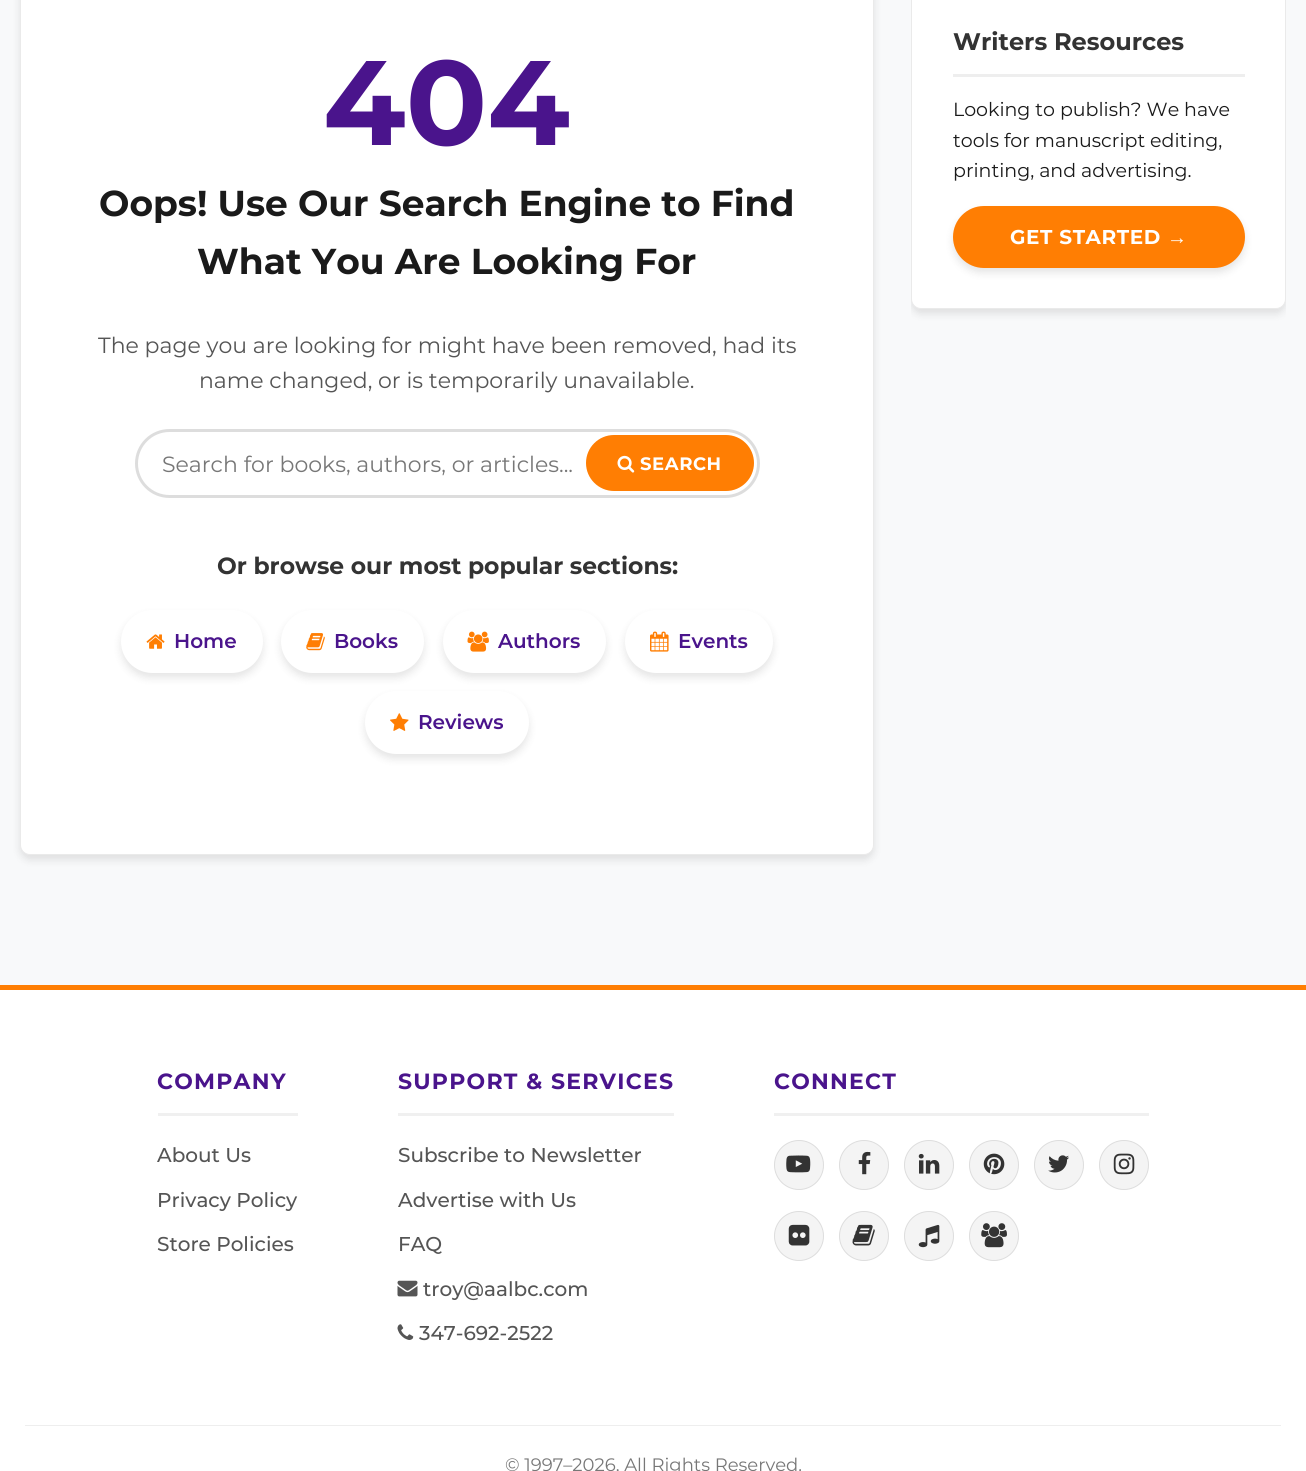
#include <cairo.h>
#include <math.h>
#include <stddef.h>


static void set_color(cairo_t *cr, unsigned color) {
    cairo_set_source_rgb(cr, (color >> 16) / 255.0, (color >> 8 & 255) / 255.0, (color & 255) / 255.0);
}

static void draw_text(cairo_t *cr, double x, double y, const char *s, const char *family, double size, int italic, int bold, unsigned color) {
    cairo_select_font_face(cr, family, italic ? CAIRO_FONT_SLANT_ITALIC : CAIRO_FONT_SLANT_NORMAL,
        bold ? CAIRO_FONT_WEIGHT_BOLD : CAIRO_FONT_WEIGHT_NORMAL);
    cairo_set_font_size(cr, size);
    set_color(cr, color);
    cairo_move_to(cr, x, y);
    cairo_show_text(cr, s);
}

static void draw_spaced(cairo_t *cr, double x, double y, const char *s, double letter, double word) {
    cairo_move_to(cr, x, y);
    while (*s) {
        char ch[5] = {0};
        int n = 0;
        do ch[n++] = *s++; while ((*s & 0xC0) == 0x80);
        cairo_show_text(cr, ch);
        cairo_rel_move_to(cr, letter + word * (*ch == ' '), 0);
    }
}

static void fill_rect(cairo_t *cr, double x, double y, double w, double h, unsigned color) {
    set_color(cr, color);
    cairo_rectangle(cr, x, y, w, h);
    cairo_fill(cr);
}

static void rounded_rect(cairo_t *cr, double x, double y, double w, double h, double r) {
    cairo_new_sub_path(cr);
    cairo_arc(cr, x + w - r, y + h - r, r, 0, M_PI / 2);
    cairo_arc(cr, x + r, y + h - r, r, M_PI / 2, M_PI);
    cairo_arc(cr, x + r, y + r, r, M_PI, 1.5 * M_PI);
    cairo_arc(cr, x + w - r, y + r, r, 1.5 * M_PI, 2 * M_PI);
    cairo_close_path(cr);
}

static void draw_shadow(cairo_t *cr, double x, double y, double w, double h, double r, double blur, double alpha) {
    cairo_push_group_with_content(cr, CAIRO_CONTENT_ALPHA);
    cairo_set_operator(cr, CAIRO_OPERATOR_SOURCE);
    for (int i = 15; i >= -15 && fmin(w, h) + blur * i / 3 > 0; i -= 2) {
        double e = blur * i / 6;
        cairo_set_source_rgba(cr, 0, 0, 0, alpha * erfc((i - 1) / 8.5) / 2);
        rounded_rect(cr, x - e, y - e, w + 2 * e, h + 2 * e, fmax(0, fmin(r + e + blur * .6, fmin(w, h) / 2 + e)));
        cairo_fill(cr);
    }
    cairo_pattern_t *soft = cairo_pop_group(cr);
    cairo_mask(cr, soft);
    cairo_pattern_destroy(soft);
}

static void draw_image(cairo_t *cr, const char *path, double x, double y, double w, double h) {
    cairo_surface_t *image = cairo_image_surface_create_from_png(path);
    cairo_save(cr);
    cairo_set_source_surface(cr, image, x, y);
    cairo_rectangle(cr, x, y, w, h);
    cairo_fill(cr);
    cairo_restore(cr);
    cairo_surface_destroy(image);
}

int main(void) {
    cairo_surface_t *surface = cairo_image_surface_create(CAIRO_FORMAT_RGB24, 1306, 1471);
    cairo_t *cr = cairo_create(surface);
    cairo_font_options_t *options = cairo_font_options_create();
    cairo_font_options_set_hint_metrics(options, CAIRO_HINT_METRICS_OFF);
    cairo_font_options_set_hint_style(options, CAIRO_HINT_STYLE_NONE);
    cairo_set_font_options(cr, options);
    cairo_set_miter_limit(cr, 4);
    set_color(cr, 0xF8F9FA);
    cairo_paint(cr);
    set_color(cr, 0x000000);
    draw_shadow(cr, 20, -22, 854, 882, 10, 4, 0.1);
    set_color(cr, 0xFFFFFF);
    rounded_rect(cr, 20.5, -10.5, 853, 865, 9.5);
    cairo_fill_preserve(cr);
    set_color(cr, 0xEAEAEA);
    cairo_set_line_width(cr, 1);
    cairo_stroke(cr);
    draw_text(cr, 323, 145, "404", "Montserrat", 120, 0, 1, 0x4A148C);
    draw_text(cr, 99, 216, "Oops! Use Our Search Engine to Find", "Montserrat", 36, 0, 1, 0x1A1A1A);
    draw_text(cr, 197, 274, "What You Are Looking For", "Montserrat", 36, 0, 1, 0x1A1A1A);
    draw_text(cr, 98, 353, "The page you are looking for might have been removed, had its", "Montserrat", 22, 0, 0, 0x555555);
    draw_text(cr, 199, 388, "name changed, or is temporarily unavailable.", "Montserrat", 22, 0, 0, 0x555555);
    rounded_rect(cr, 136.5, 430.5, 622, 66, 33);
    set_color(cr, 0xDDDDDD);
    cairo_set_line_width(cr, 3);
    cairo_stroke(cr);
    draw_text(cr, 162, 472, "Search for books, authors, or articles...", "Montserrat", 22, 0, 0, 0x777777);
    set_color(cr, 0xFF7E03);
    rounded_rect(cr, 586, 435, 168, 56, 28);
    cairo_fill(cr);
    draw_image(cr, "assets/img1.png", 617, 455, 18, 18);
    cairo_select_font_face(cr, "Montserrat", CAIRO_FONT_SLANT_NORMAL, CAIRO_FONT_WEIGHT_BOLD);
    cairo_set_font_size(cr, 18);
    set_color(cr, 0xFFFFFF);
    draw_spaced(cr, 640, 470, "SEARCH", 0.6, 0);
    draw_text(cr, 217, 574, "Or browse our most popular sections:", "Montserrat", 23.4, 0, 1, 0x333333);
    set_color(cr, 0x000000);
    draw_shadow(cr, 121, 615, 142, 63, 31.5, 4, 0.1);
    set_color(cr, 0xFFFFFF);
    rounded_rect(cr, 121, 610, 142, 63, 31.5);
    cairo_fill(cr);
    draw_image(cr, "assets/img2.png", 146, 634, 19, 15);
    draw_text(cr, 174, 648, "Home", "Montserrat SemiBold", 20, 0, 0, 0x4A148C);
    set_color(cr, 0x000000);
    draw_shadow(cr, 281, 615, 143, 63, 31.5, 4, 0.1);
    set_color(cr, 0xFFFFFF);
    rounded_rect(cr, 281, 610, 143, 63, 31.5);
    cairo_fill(cr);
    draw_image(cr, "assets/img3.png", 306, 633, 19, 18);
    draw_text(cr, 334, 648, "Books", "Montserrat SemiBold", 20, 0, 0, 0x4A148C);
    set_color(cr, 0x000000);
    draw_shadow(cr, 443, 615, 163, 63, 31.5, 4, 0.1);
    set_color(cr, 0xFFFFFF);
    rounded_rect(cr, 443, 610, 163, 63, 31.5);
    cairo_fill(cr);
    draw_image(cr, "assets/img4.png", 467, 631, 22, 21);
    draw_text(cr, 498, 648, "Authors", "Montserrat SemiBold", 20, 0, 0, 0x4A148C);
    set_color(cr, 0x000000);
    draw_shadow(cr, 625, 615, 148, 63, 31.5, 4, 0.1);
    set_color(cr, 0xFFFFFF);
    rounded_rect(cr, 625, 610, 148, 63, 31.5);
    cairo_fill(cr);
    draw_image(cr, "assets/img5.png", 650, 631, 19, 21);
    draw_text(cr, 678, 648, "Events", "Montserrat SemiBold", 20, 0, 0, 0x4A148C);
    set_color(cr, 0x000000);
    draw_shadow(cr, 365, 696, 164, 63, 31.5, 4, 0.1);
    set_color(cr, 0xFFFFFF);
    rounded_rect(cr, 365, 691, 164, 63, 31.5);
    cairo_fill(cr);
    draw_image(cr, "assets/img6.png", 390, 713, 19, 18);
    draw_text(cr, 418, 729, "Reviews", "Montserrat SemiBold", 20, 0, 0, 0x4A148C);
    cairo_save(cr);
    cairo_rectangle(cr, 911, 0, 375, 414);
    cairo_clip(cr);
    set_color(cr, 0x000000);
    draw_shadow(cr, 911, -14, 375, 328, 10, 4, 0.1);
    cairo_restore(cr);
    set_color(cr, 0xFFFFFF);
    rounded_rect(cr, 911.5, -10.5, 374, 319, 9.5);
    cairo_fill_preserve(cr);
    set_color(cr, 0xEAEAEA);
    cairo_set_line_width(cr, 1);
    cairo_stroke(cr);
    fill_rect(cr, 953, 74, 292, 3, 0xEEEEEE);
    draw_text(cr, 953, 50, "Writers Resources", "Montserrat", 24, 0, 1, 0x333333);
    draw_text(cr, 953, 116, "Looking to publish? We have", "Montserrat", 19, 0, 0, 0x1A1A1A);
    draw_text(cr, 953, 147, "tools for manuscript editing,", "Montserrat", 19, 0, 0, 0x1A1A1A);
    draw_text(cr, 953, 177, "printing, and advertising.", "Montserrat", 19, 0, 0, 0x1A1A1A);
    set_color(cr, 0x000000);
    draw_shadow(cr, 953, 211, 292, 62, 31, 4, 0.1);
    set_color(cr, 0xFF7E03);
    rounded_rect(cr, 953, 206, 292, 62, 31);
    cairo_fill(cr);
    cairo_select_font_face(cr, "Montserrat", CAIRO_FONT_SLANT_NORMAL, CAIRO_FONT_WEIGHT_BOLD);
    cairo_set_font_size(cr, 20);
    set_color(cr, 0xFFFFFF);
    draw_spaced(cr, 1010, 244, "GET STARTED", 0.6, 0);
    cairo_select_font_face(cr, "Liberation Sans", CAIRO_FONT_SLANT_NORMAL, CAIRO_FONT_WEIGHT_BOLD);
    draw_spaced(cr, 1167, 244, "→", 0.6, 0);
    fill_rect(cr, 0, 990, 1306, 481, 0xFFFFFF);
    fill_rect(cr, 0, 985, 1306, 5, 0xFF7E03);
    fill_rect(cr, 158, 1113, 140, 3, 0xF0F0F0);
    cairo_select_font_face(cr, "Montserrat", CAIRO_FONT_SLANT_NORMAL, CAIRO_FONT_WEIGHT_BOLD);
    cairo_set_font_size(cr, 22);
    set_color(cr, 0x4A148C);
    draw_spaced(cr, 157, 1089, "COMPANY", 1.25, 0);
    draw_text(cr, 157, 1162, "About Us", "Montserrat Medium", 20, 0, 0, 0x555555);
    draw_text(cr, 157, 1207, "Privacy Policy", "Montserrat Medium", 20, 0, 0, 0x555555);
    draw_text(cr, 157, 1251, "Store Policies", "Montserrat Medium", 20, 0, 0, 0x555555);
    fill_rect(cr, 398, 1113, 276, 3, 0xF0F0F0);
    cairo_select_font_face(cr, "Montserrat", CAIRO_FONT_SLANT_NORMAL, CAIRO_FONT_WEIGHT_BOLD);
    cairo_set_font_size(cr, 22);
    set_color(cr, 0x4A148C);
    draw_spaced(cr, 398, 1089, "SUPPORT & SERVICES", 1.25, 0);
    draw_text(cr, 398, 1162, "Subscribe to Newsletter", "Montserrat Medium", 20, 0, 0, 0x555555);
    draw_text(cr, 398, 1207, "Advertise with Us", "Montserrat Medium", 20, 0, 0, 0x555555);
    draw_text(cr, 398, 1251, "FAQ", "Montserrat Medium", 20, 0, 0, 0x555555);
    draw_image(cr, "assets/img7.png", 397, 1280, 21, 17);
    draw_text(cr, 423, 1296, "troy@aalbc.com", "Montserrat Medium", 20, 0, 0, 0x555555);
    draw_image(cr, "assets/img8.png", 397, 1324, 17, 16);
    draw_text(cr, 419, 1340, "347-692-2522", "Montserrat Medium", 20, 0, 0, 0x555555);
    fill_rect(cr, 774, 1113, 375, 3, 0xF0F0F0);
    cairo_select_font_face(cr, "Montserrat", CAIRO_FONT_SLANT_NORMAL, CAIRO_FONT_WEIGHT_BOLD);
    cairo_set_font_size(cr, 22);
    set_color(cr, 0x4A148C);
    draw_spaced(cr, 774, 1089, "CONNECT", 1.25, 0);
    set_color(cr, 0xF4F4F4);
    cairo_new_path(cr);
    cairo_arc(cr, 799, 1165, 24.5, 0, 2 * M_PI);
    cairo_fill_preserve(cr);
    set_color(cr, 0xDDDDDD);
    cairo_stroke(cr);
    draw_image(cr, "assets/img9.png", 786, 1155, 25, 18);
    set_color(cr, 0xF4F4F4);
    cairo_arc(cr, 864, 1165, 24.5, 0, 2 * M_PI);
    cairo_fill_preserve(cr);
    set_color(cr, 0xDDDDDD);
    cairo_stroke(cr);
    draw_image(cr, "assets/img10.png", 858, 1151, 13, 24);
    set_color(cr, 0xF4F4F4);
    cairo_arc(cr, 929, 1165, 24.5, 0, 2 * M_PI);
    cairo_fill_preserve(cr);
    set_color(cr, 0xDDDDDD);
    cairo_stroke(cr);
    draw_image(cr, "assets/img11.png", 918, 1153, 22, 21);
    set_color(cr, 0xF4F4F4);
    cairo_arc(cr, 994, 1165, 24.5, 0, 2 * M_PI);
    cairo_fill_preserve(cr);
    set_color(cr, 0xDDDDDD);
    cairo_stroke(cr);
    draw_image(cr, "assets/img12.png", 983, 1153, 22, 22);
    set_color(cr, 0xF4F4F4);
    cairo_arc(cr, 1059, 1165, 24.5, 0, 2 * M_PI);
    cairo_fill_preserve(cr);
    set_color(cr, 0xDDDDDD);
    cairo_stroke(cr);
    draw_image(cr, "assets/img13.png", 1048, 1155, 21, 18);
    set_color(cr, 0xF4F4F4);
    cairo_arc(cr, 1124, 1165, 24.5, 0, 2 * M_PI);
    cairo_fill_preserve(cr);
    set_color(cr, 0xDDDDDD);
    cairo_stroke(cr);
    draw_image(cr, "assets/img14.png", 1113, 1153, 22, 22);
    set_color(cr, 0xF4F4F4);
    cairo_arc(cr, 799, 1236, 24.5, 0, 2 * M_PI);
    cairo_fill_preserve(cr);
    set_color(cr, 0xDDDDDD);
    cairo_stroke(cr);
    draw_image(cr, "assets/img15.png", 788, 1224, 22, 22);
    set_color(cr, 0xF4F4F4);
    cairo_arc(cr, 864, 1236, 24.5, 0, 2 * M_PI);
    cairo_fill_preserve(cr);
    set_color(cr, 0xDDDDDD);
    cairo_stroke(cr);
    draw_image(cr, "assets/img16.png", 852, 1224, 23, 22);
    set_color(cr, 0xF4F4F4);
    cairo_arc(cr, 929, 1236, 24.5, 0, 2 * M_PI);
    cairo_fill_preserve(cr);
    set_color(cr, 0xDDDDDD);
    cairo_stroke(cr);
    draw_image(cr, "assets/img17.png", 918, 1224, 22, 24);
    set_color(cr, 0xF4F4F4);
    cairo_arc(cr, 994, 1236, 24.5, 0, 2 * M_PI);
    cairo_fill_preserve(cr);
    set_color(cr, 0xDDDDDD);
    cairo_stroke(cr);
    draw_image(cr, "assets/img18.png", 981, 1223, 26, 25);
    fill_rect(cr, 25, 1425, 1256, 1, 0xEEEEEE);
    draw_text(cr, 505, 1471, "© 1997–2026, All Rights Reserved.", "Montserrat", 18, 0, 0, 0x777777);
    cairo_surface_write_to_png(surface, "output.png");
    cairo_font_options_destroy(options);
    cairo_destroy(cr);
    cairo_surface_destroy(surface);
    return 0;
}
